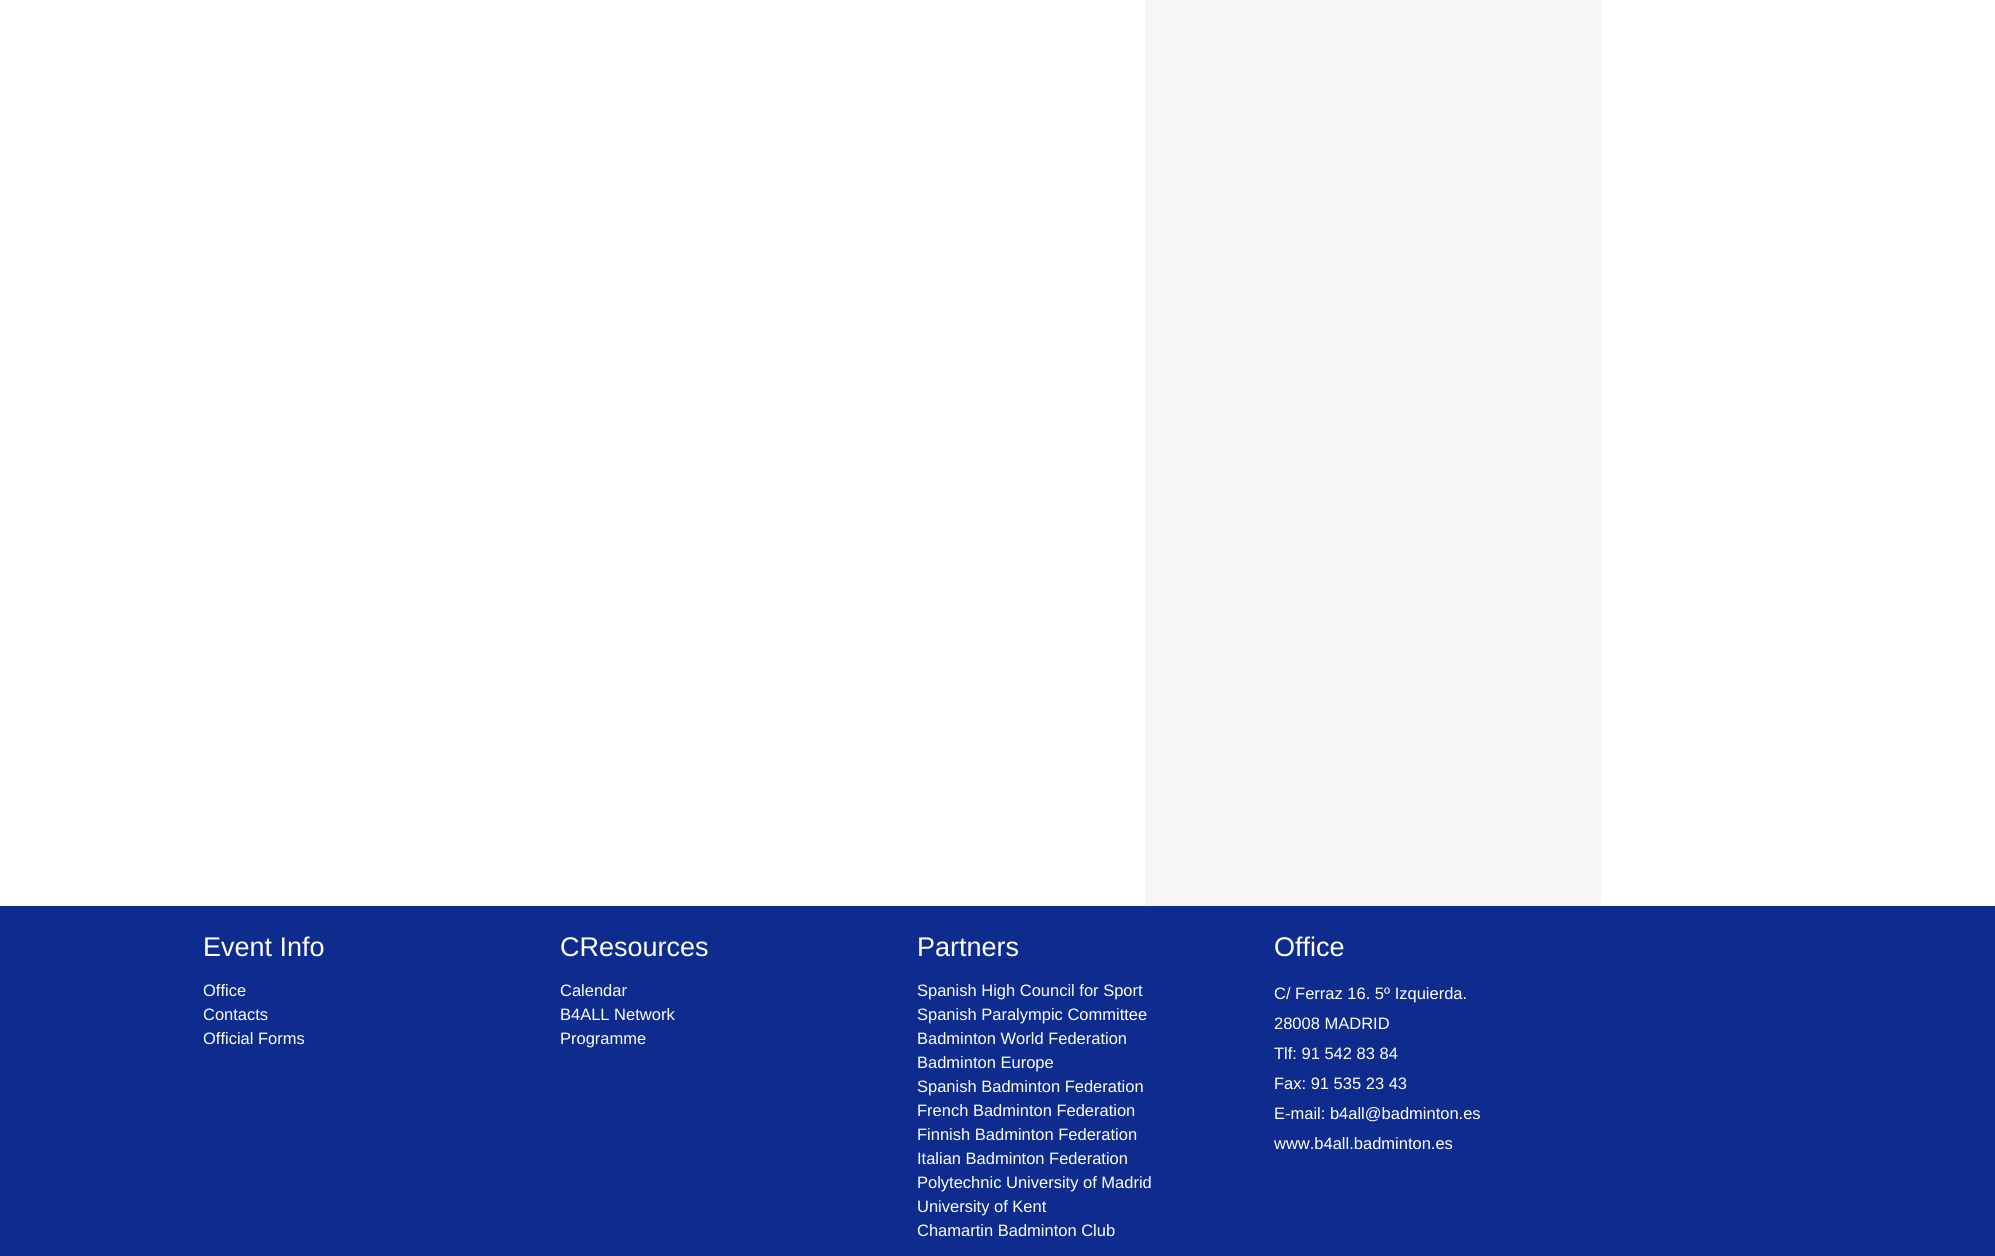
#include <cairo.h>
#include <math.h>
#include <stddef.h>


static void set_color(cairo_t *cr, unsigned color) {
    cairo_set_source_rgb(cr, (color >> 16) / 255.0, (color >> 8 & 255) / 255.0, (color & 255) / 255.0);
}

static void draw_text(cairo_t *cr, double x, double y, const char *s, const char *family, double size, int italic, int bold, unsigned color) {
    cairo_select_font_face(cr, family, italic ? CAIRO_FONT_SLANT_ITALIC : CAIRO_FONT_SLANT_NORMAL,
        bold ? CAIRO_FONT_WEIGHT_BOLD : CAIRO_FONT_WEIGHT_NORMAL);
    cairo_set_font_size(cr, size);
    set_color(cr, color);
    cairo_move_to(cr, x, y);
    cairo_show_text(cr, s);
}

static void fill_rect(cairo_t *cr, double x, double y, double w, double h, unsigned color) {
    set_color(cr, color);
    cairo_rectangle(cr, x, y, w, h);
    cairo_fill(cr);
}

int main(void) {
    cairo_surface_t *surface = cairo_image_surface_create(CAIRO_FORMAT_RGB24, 1995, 1256);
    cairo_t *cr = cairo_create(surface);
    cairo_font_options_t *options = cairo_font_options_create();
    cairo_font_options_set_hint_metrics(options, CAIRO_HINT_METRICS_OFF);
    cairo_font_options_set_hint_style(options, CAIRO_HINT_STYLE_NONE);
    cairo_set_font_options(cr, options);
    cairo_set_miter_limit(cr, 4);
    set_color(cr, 0xFFFFFF);
    cairo_paint(cr);
    fill_rect(cr, 1145, 0, 456, 906, 0xF6F6F6);
    fill_rect(cr, 0, 906, 1995, 350, 0x0E2C8E);
    draw_text(cr, 203, 956, "Event Info", "Liberation Sans", 27, 0, 0, 0xFFFFFF);
    draw_text(cr, 203, 996, "Office", "Liberation Sans", 16.5, 0, 0, 0xFFFFFF);
    draw_text(cr, 203, 1020, "Contacts", "Liberation Sans", 16.5, 0, 0, 0xFFFFFF);
    draw_text(cr, 203, 1044, "Official Forms", "Liberation Sans", 16.5, 0, 0, 0xFFFFFF);
    draw_text(cr, 560, 956, "CResources", "Liberation Sans", 27, 0, 0, 0xFFFFFF);
    draw_text(cr, 560, 996, "Calendar", "Liberation Sans", 16.5, 0, 0, 0xFFFFFF);
    draw_text(cr, 560, 1020, "B4ALL Network", "Liberation Sans", 16.5, 0, 0, 0xFFFFFF);
    draw_text(cr, 560, 1044, "Programme", "Liberation Sans", 16.5, 0, 0, 0xFFFFFF);
    draw_text(cr, 917, 956, "Partners", "Liberation Sans", 27, 0, 0, 0xFFFFFF);
    draw_text(cr, 917, 996, "Spanish High Council for Sport", "Liberation Sans", 16.5, 0, 0, 0xFFFFFF);
    draw_text(cr, 917, 1020, "Spanish Paralympic Committee", "Liberation Sans", 16.5, 0, 0, 0xFFFFFF);
    draw_text(cr, 917, 1044, "Badminton World Federation", "Liberation Sans", 16.5, 0, 0, 0xFFFFFF);
    draw_text(cr, 917, 1068, "Badminton Europe", "Liberation Sans", 16.5, 0, 0, 0xFFFFFF);
    draw_text(cr, 917, 1092, "Spanish Badminton Federation", "Liberation Sans", 16.5, 0, 0, 0xFFFFFF);
    draw_text(cr, 917, 1116, "French Badminton Federation", "Liberation Sans", 16.5, 0, 0, 0xFFFFFF);
    draw_text(cr, 917, 1140, "Finnish Badminton Federation", "Liberation Sans", 16.5, 0, 0, 0xFFFFFF);
    draw_text(cr, 917, 1164, "Italian Badminton Federation", "Liberation Sans", 16.5, 0, 0, 0xFFFFFF);
    draw_text(cr, 917, 1188, "Polytechnic University of Madrid", "Liberation Sans", 16.5, 0, 0, 0xFFFFFF);
    draw_text(cr, 917, 1212, "University of Kent", "Liberation Sans", 16.5, 0, 0, 0xFFFFFF);
    draw_text(cr, 917, 1236, "Chamartin Badminton Club", "Liberation Sans", 16.5, 0, 0, 0xFFFFFF);
    draw_text(cr, 1274, 956, "Office", "Liberation Sans", 27, 0, 0, 0xFFFFFF);
    draw_text(cr, 1274, 999, "C/ Ferraz 16. 5º Izquierda.", "Liberation Sans", 16.5, 0, 0, 0xFFFFFF);
    draw_text(cr, 1274, 1029, "28008 MADRID", "Liberation Sans", 16.5, 0, 0, 0xFFFFFF);
    draw_text(cr, 1274, 1059, "Tlf: 91 542 83 84", "Liberation Sans", 16.5, 0, 0, 0xFFFFFF);
    draw_text(cr, 1274, 1089, "Fax: 91 535 23 43", "Liberation Sans", 16.5, 0, 0, 0xFFFFFF);
    draw_text(cr, 1274, 1119, "E-mail: b4all@badminton.es", "Liberation Sans", 16.5, 0, 0, 0xFFFFFF);
    draw_text(cr, 1274, 1149, "www.b4all.badminton.es", "Liberation Sans", 16.5, 0, 0, 0xFFFFFF);
    cairo_surface_write_to_png(surface, "output.png");
    cairo_font_options_destroy(options);
    cairo_destroy(cr);
    cairo_surface_destroy(surface);
    return 0;
}
